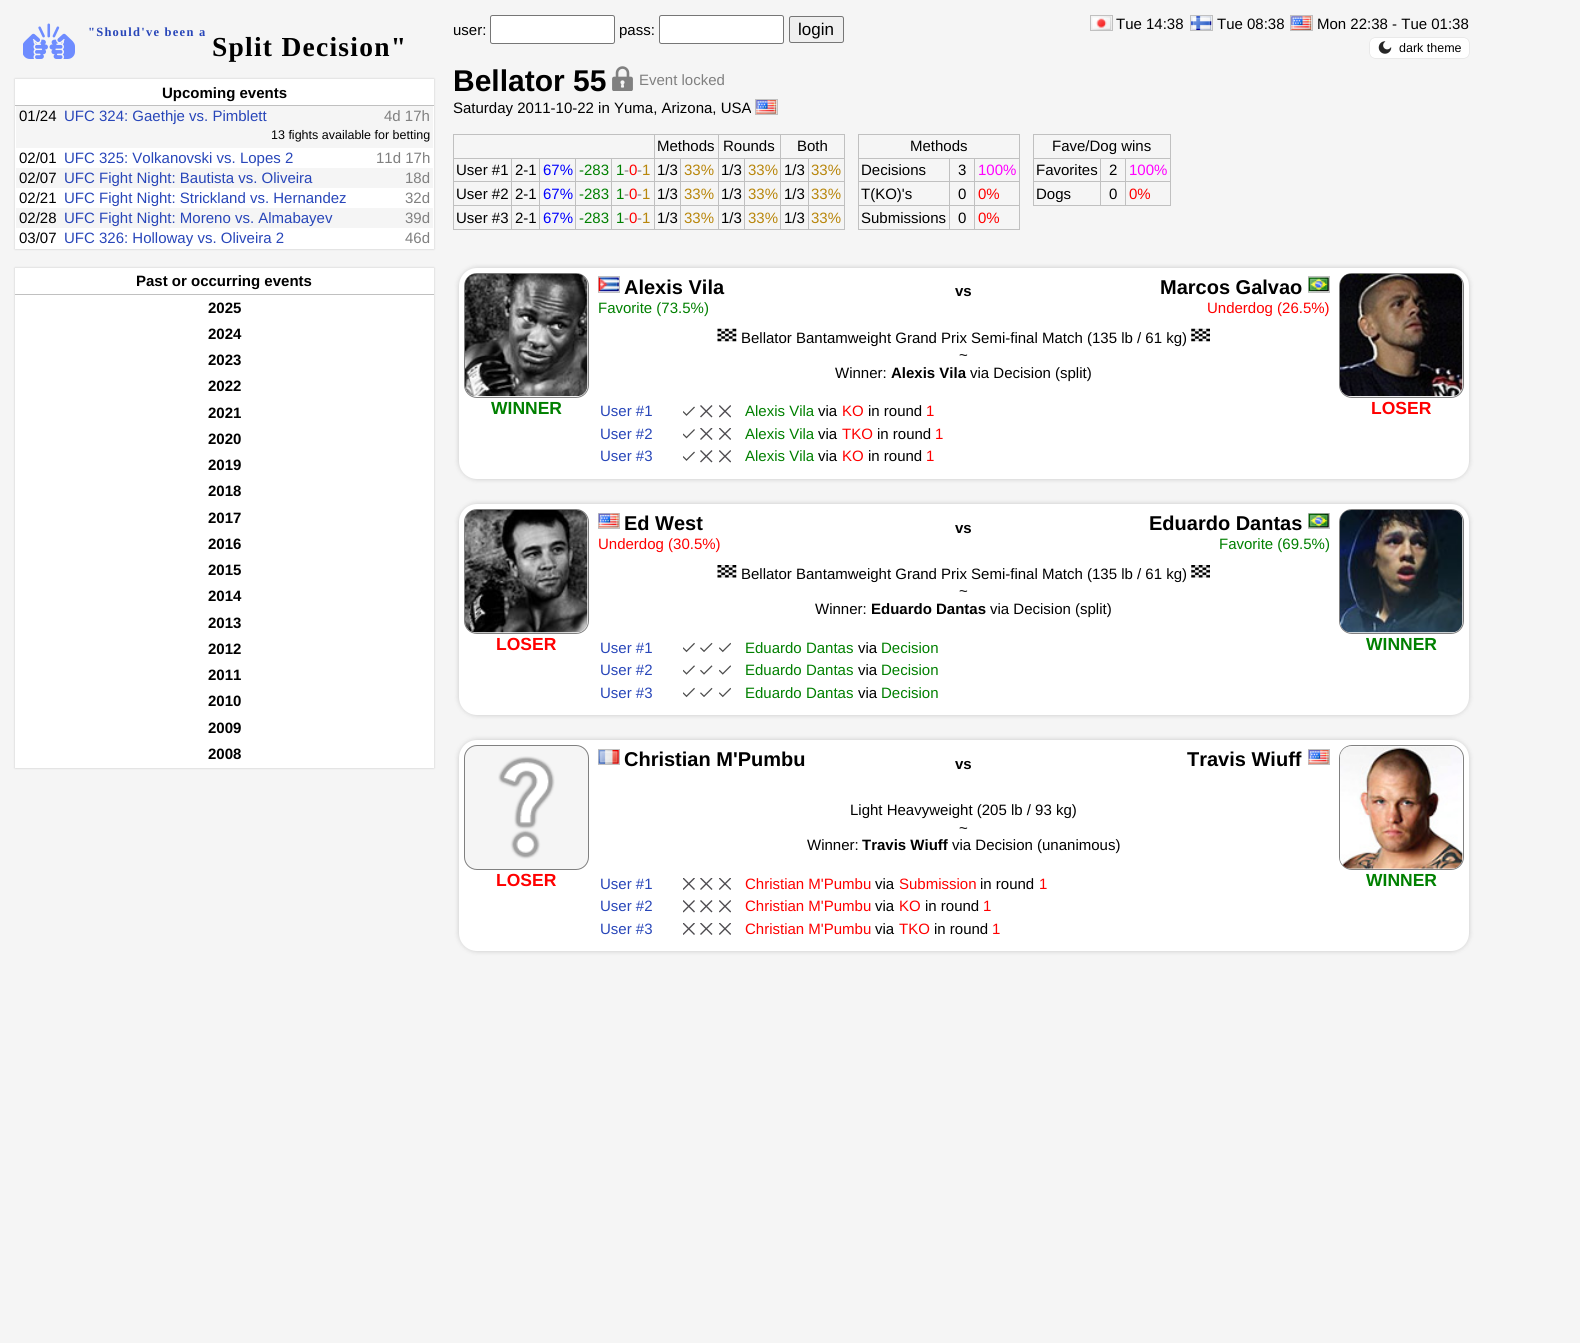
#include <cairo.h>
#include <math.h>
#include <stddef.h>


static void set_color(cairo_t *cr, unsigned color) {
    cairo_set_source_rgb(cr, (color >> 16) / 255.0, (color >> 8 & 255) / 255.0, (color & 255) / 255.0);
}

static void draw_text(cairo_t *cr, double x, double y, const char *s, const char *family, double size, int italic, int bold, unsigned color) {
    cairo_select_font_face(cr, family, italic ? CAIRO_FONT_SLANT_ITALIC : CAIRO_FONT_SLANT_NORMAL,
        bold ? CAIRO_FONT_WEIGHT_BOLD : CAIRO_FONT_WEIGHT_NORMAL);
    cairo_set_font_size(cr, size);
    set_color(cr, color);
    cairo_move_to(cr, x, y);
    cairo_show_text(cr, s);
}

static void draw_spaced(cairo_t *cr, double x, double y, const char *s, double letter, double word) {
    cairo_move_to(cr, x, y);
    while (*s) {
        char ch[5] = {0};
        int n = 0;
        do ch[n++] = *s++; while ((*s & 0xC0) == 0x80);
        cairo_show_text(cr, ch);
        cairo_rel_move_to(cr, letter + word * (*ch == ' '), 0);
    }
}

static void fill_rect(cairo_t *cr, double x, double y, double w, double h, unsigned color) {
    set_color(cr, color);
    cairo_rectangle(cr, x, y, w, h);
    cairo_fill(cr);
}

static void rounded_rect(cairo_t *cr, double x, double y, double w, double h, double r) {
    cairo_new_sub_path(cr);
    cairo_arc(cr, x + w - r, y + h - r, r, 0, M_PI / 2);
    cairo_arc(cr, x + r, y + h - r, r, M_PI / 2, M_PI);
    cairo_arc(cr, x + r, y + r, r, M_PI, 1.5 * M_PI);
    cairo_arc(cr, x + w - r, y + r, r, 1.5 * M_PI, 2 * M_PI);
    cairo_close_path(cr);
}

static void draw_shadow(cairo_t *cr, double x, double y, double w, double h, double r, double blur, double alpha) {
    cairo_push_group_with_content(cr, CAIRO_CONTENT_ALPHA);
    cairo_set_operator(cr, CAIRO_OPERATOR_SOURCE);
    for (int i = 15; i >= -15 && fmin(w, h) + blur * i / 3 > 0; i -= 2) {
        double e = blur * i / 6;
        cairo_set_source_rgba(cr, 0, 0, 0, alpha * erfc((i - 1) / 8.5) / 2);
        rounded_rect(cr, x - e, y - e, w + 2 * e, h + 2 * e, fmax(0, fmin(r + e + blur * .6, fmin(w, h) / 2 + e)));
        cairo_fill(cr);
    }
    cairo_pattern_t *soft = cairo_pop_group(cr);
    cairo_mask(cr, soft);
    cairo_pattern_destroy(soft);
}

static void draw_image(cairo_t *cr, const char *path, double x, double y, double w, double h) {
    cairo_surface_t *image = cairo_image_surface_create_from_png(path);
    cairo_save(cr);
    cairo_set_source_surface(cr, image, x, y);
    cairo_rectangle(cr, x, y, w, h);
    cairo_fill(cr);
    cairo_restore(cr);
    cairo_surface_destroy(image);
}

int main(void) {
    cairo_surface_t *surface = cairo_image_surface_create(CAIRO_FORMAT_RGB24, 1580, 1343);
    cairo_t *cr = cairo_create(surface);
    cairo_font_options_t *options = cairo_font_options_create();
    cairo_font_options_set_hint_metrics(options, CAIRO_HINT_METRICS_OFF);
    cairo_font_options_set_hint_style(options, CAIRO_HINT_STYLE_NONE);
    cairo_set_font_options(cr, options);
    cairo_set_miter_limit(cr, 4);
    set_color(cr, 0xF5F5F5);
    cairo_paint(cr);
    draw_image(cr, "assets/img1.png", 23, 23, 52, 36);
    cairo_select_font_face(cr, "Liberation Serif", CAIRO_FONT_SLANT_NORMAL, CAIRO_FONT_WEIGHT_BOLD);
    cairo_set_font_size(cr, 12.5);
    set_color(cr, 0x2846B9);
    draw_spaced(cr, 88, 36, "\"Should've been a", 1.25, 0);
    cairo_set_font_size(cr, 27.5);
    set_color(cr, 0x000000);
    draw_spaced(cr, 212, 56, "Split Decision\"", 1.25, 0);
    cairo_save(cr);
    cairo_set_fill_rule(cr, CAIRO_FILL_RULE_EVEN_ODD);
    cairo_new_path(cr);
    cairo_move_to(cr, 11, 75);
    cairo_line_to(cr, 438, 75);
    cairo_line_to(cr, 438, 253);
    cairo_line_to(cr, 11, 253);
    cairo_close_path(cr);
    cairo_move_to(cr, 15, 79);
    cairo_line_to(cr, 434, 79);
    cairo_line_to(cr, 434, 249);
    cairo_line_to(cr, 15, 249);
    cairo_close_path(cr);
    cairo_clip(cr);
    set_color(cr, 0x000000);
    draw_shadow(cr, 15, 79, 419, 170, 0, 1, 0.2);
    cairo_restore(cr);
    fill_rect(cr, 15, 79, 419, 1, 0xFFFFFF);
    fill_rect(cr, 433, 79, 1, 170, 0xFFFFFF);
    fill_rect(cr, 15, 248, 419, 1, 0xFFFFFF);
    fill_rect(cr, 15, 79, 1, 170, 0xFFFFFF);
    fill_rect(cr, 16, 80, 417, 25, 0xFFFFFF);
    fill_rect(cr, 15, 105, 419, 1, 0xC0C0C0);
    draw_text(cr, 162, 98, "Upcoming events", "Liberation Sans", 15, 0, 1, 0x000000);
    draw_text(cr, 19, 121, "01/24", "Liberation Sans", 15, 0, 0, 0x000000);
    draw_text(cr, 64, 121, "UFC 324: Gaethje vs. Pimblett", "Liberation Sans", 15, 0, 0, 0x2846B9);
    draw_text(cr, 384, 121, "4d 17h", "Liberation Sans", 15, 0, 0, 0x808080);
    draw_text(cr, 271, 139, "13 fights available for betting", "Liberation Sans", 12.5, 0, 0, 0x000000);
    fill_rect(cr, 16, 148, 417, 20, 0xFFFFFF);
    draw_text(cr, 19, 163, "02/01", "Liberation Sans", 15, 0, 0, 0x000000);
    draw_text(cr, 64, 163, "UFC 325: Volkanovski vs. Lopes 2", "Liberation Sans", 15, 0, 0, 0x2846B9);
    draw_text(cr, 376, 163, "11d 17h", "Liberation Sans", 15, 0, 0, 0x808080);
    draw_text(cr, 19, 183, "02/07", "Liberation Sans", 15, 0, 0, 0x000000);
    draw_text(cr, 64, 183, "UFC Fight Night: Bautista vs. Oliveira", "Liberation Sans", 15, 0, 0, 0x2846B9);
    draw_text(cr, 405, 183, "18d", "Liberation Sans", 15, 0, 0, 0x808080);
    fill_rect(cr, 16, 188, 417, 20, 0xFFFFFF);
    draw_text(cr, 19, 203, "02/21", "Liberation Sans", 15, 0, 0, 0x000000);
    draw_text(cr, 64, 203, "UFC Fight Night: Strickland vs. Hernandez", "Liberation Sans", 15, 0, 0, 0x2846B9);
    draw_text(cr, 405, 203, "32d", "Liberation Sans", 15, 0, 0, 0x808080);
    draw_text(cr, 19, 223, "02/28", "Liberation Sans", 15, 0, 0, 0x000000);
    draw_text(cr, 64, 223, "UFC Fight Night: Moreno vs. Almabayev", "Liberation Sans", 15, 0, 0, 0x2846B9);
    draw_text(cr, 405, 223, "39d", "Liberation Sans", 15, 0, 0, 0x808080);
    fill_rect(cr, 16, 228, 417, 20, 0xFFFFFF);
    draw_text(cr, 19, 243, "03/07", "Liberation Sans", 15, 0, 0, 0x000000);
    draw_text(cr, 64, 243, "UFC 326: Holloway vs. Oliveira 2", "Liberation Sans", 15, 0, 0, 0x2846B9);
    draw_text(cr, 405, 243, "46d", "Liberation Sans", 15, 0, 0, 0x808080);
    set_color(cr, 0x000000);
    draw_shadow(cr, 15, 268, 419, 500, 0, 1, 0.2);
    fill_rect(cr, 15, 268, 419, 1, 0xFFFFFF);
    fill_rect(cr, 15, 268, 1, 500, 0xFFFFFF);
    fill_rect(cr, 16, 269, 418, 25, 0xFFFFFF);
    fill_rect(cr, 15, 294, 419, 1, 0xC0C0C0);
    draw_text(cr, 136, 286, "Past or occurring events", "Liberation Sans", 15, 0, 1, 0x000000);
    fill_rect(cr, 16, 295, 418, 473, 0xFFFFFF);
    draw_text(cr, 208, 313, "2025", "Liberation Sans", 15, 0, 1, 0x000000);
    draw_text(cr, 208, 339, "2024", "Liberation Sans", 15, 0, 1, 0x000000);
    draw_text(cr, 208, 365, "2023", "Liberation Sans", 15, 0, 1, 0x000000);
    draw_text(cr, 208, 391, "2022", "Liberation Sans", 15, 0, 1, 0x000000);
    draw_text(cr, 208, 418, "2021", "Liberation Sans", 15, 0, 1, 0x000000);
    draw_text(cr, 208, 444, "2020", "Liberation Sans", 15, 0, 1, 0x000000);
    draw_text(cr, 208, 470, "2019", "Liberation Sans", 15, 0, 1, 0x000000);
    draw_text(cr, 208, 496, "2018", "Liberation Sans", 15, 0, 1, 0x000000);
    draw_text(cr, 208, 523, "2017", "Liberation Sans", 15, 0, 1, 0x000000);
    draw_text(cr, 208, 549, "2016", "Liberation Sans", 15, 0, 1, 0x000000);
    draw_text(cr, 208, 575, "2015", "Liberation Sans", 15, 0, 1, 0x000000);
    draw_text(cr, 208, 601, "2014", "Liberation Sans", 15, 0, 1, 0x000000);
    draw_text(cr, 208, 628, "2013", "Liberation Sans", 15, 0, 1, 0x000000);
    draw_text(cr, 208, 654, "2012", "Liberation Sans", 15, 0, 1, 0x000000);
    draw_text(cr, 208, 680, "2011", "Liberation Sans", 15, 0, 1, 0x000000);
    draw_text(cr, 208, 706, "2010", "Liberation Sans", 15, 0, 1, 0x000000);
    draw_text(cr, 208, 733, "2009", "Liberation Sans", 15, 0, 1, 0x000000);
    draw_text(cr, 208, 759, "2008", "Liberation Sans", 15, 0, 1, 0x000000);
    draw_text(cr, 453, 35, "user:", "Liberation Sans", 15, 0, 0, 0x000000);
    set_color(cr, 0xFFFFFF);
    rounded_rect(cr, 490.5, 15.5, 124, 28, 2);
    cairo_fill_preserve(cr);
    set_color(cr, 0x767676);
    cairo_set_line_width(cr, 1);
    cairo_stroke(cr);
    draw_text(cr, 619, 35, "pass:", "Liberation Sans", 15, 0, 0, 0x000000);
    set_color(cr, 0xFFFFFF);
    rounded_rect(cr, 659.5, 15.5, 124, 28, 2);
    cairo_fill_preserve(cr);
    set_color(cr, 0x767676);
    cairo_stroke(cr);
    set_color(cr, 0xEFEFEF);
    rounded_rect(cr, 789.5, 16.5, 54, 26, 2);
    cairo_fill_preserve(cr);
    set_color(cr, 0x767676);
    cairo_stroke(cr);
    draw_text(cr, 798, 35, "login", "Liberation Sans", 17, 0, 0, 0x000000);
    cairo_rectangle(cr, 1090.5, 15.5, 22, 15);
    set_color(cr, 0xC0C0C0);
    cairo_stroke(cr);
    draw_image(cr, "assets/img2.png", 1091, 16, 21, 14);
    draw_text(cr, 1116, 29, "Tue 14:38", "Liberation Sans", 15, 0, 0, 0x000000);
    cairo_rectangle(cr, 1190.5, 15.5, 22, 15);
    set_color(cr, 0xC0C0C0);
    cairo_stroke(cr);
    draw_image(cr, "assets/img3.png", 1191, 16, 21, 14);
    draw_text(cr, 1217, 29, "Tue 08:38", "Liberation Sans", 15, 0, 0, 0x000000);
    cairo_rectangle(cr, 1290.5, 15.5, 22, 15);
    set_color(cr, 0xC0C0C0);
    cairo_stroke(cr);
    draw_image(cr, "assets/img4.png", 1291, 16, 21, 14);
    draw_text(cr, 1317, 29, "Mon 22:38 - Tue 01:38", "Liberation Sans", 15, 0, 0, 0x000000);
    set_color(cr, 0x000000);
    draw_shadow(cr, 1370, 38, 99, 20, 5, 0.5, 0.2);
    set_color(cr, 0xFFFFFF);
    rounded_rect(cr, 1370, 38, 99, 20, 5);
    cairo_fill(cr);
    draw_image(cr, "assets/img5.png", 1378, 41, 14, 13);
    draw_text(cr, 1399, 52, "dark theme", "Liberation Sans", 12.5, 0, 0, 0x000000);
    draw_text(cr, 453, 91, "Bellator 55", "Liberation Sans", 30, 0, 1, 0x000000);
    draw_image(cr, "assets/img6.png", 612, 66, 21, 25);
    draw_text(cr, 639, 85, "Event locked", "Liberation Sans", 15, 0, 0, 0x808080);
    cairo_rectangle(cr, 755.5, 99.5, 22, 15);
    set_color(cr, 0xC0C0C0);
    cairo_stroke(cr);
    draw_text(cr, 453, 113, "Saturday 2011-10-22 in Yuma, Arizona, USA", "Liberation Sans", 15, 0, 0, 0x000000);
    draw_image(cr, "assets/img7.png", 756, 100, 21, 14);
    fill_rect(cr, 780, 134, 65, 1, 0xC0C0C0);
    fill_rect(cr, 808, 158, 37, 1, 0xC0C0C0);
    fill_rect(cr, 808, 181, 37, 1, 0xC0C0C0);
    fill_rect(cr, 808, 205, 37, 1, 0xC0C0C0);
    fill_rect(cr, 844, 205, 1, 25, 0xC0C0C0);
    fill_rect(cr, 808, 229, 37, 1, 0xC0C0C0);
    fill_rect(cr, 808, 205, 1, 25, 0xC0C0C0);
    fill_rect(cr, 780, 205, 29, 1, 0xC0C0C0);
    fill_rect(cr, 808, 181, 1, 25, 0xC0C0C0);
    fill_rect(cr, 780, 181, 29, 1, 0xC0C0C0);
    fill_rect(cr, 808, 158, 1, 25, 0xC0C0C0);
    fill_rect(cr, 780, 158, 29, 1, 0xC0C0C0);
    fill_rect(cr, 780, 229, 29, 1, 0xC0C0C0);
    fill_rect(cr, 780, 205, 1, 25, 0xC0C0C0);
    fill_rect(cr, 744, 205, 37, 1, 0xC0C0C0);
    fill_rect(cr, 780, 181, 1, 25, 0xC0C0C0);
    fill_rect(cr, 744, 181, 37, 1, 0xC0C0C0);
    fill_rect(cr, 780, 158, 1, 25, 0xC0C0C0);
    fill_rect(cr, 744, 158, 37, 1, 0xC0C0C0);
    fill_rect(cr, 780, 134, 1, 25, 0xC0C0C0);
    fill_rect(cr, 718, 134, 63, 1, 0xC0C0C0);
    fill_rect(cr, 744, 229, 37, 1, 0xC0C0C0);
    fill_rect(cr, 744, 205, 1, 25, 0xC0C0C0);
    fill_rect(cr, 718, 205, 27, 1, 0xC0C0C0);
    fill_rect(cr, 744, 181, 1, 25, 0xC0C0C0);
    fill_rect(cr, 718, 181, 27, 1, 0xC0C0C0);
    fill_rect(cr, 744, 158, 1, 25, 0xC0C0C0);
    fill_rect(cr, 718, 158, 27, 1, 0xC0C0C0);
    fill_rect(cr, 718, 229, 27, 1, 0xC0C0C0);
    fill_rect(cr, 718, 205, 1, 25, 0xC0C0C0);
    fill_rect(cr, 680, 205, 39, 1, 0xC0C0C0);
    fill_rect(cr, 718, 181, 1, 25, 0xC0C0C0);
    fill_rect(cr, 680, 181, 39, 1, 0xC0C0C0);
    fill_rect(cr, 718, 158, 1, 25, 0xC0C0C0);
    fill_rect(cr, 680, 158, 39, 1, 0xC0C0C0);
    fill_rect(cr, 718, 134, 1, 25, 0xC0C0C0);
    fill_rect(cr, 654, 134, 65, 1, 0xC0C0C0);
    fill_rect(cr, 680, 229, 39, 1, 0xC0C0C0);
    fill_rect(cr, 680, 205, 1, 25, 0xC0C0C0);
    fill_rect(cr, 654, 205, 27, 1, 0xC0C0C0);
    fill_rect(cr, 680, 181, 1, 25, 0xC0C0C0);
    fill_rect(cr, 654, 181, 27, 1, 0xC0C0C0);
    fill_rect(cr, 680, 158, 1, 25, 0xC0C0C0);
    fill_rect(cr, 654, 158, 27, 1, 0xC0C0C0);
    fill_rect(cr, 654, 229, 27, 1, 0xC0C0C0);
    fill_rect(cr, 654, 205, 1, 25, 0xC0C0C0);
    fill_rect(cr, 611, 205, 44, 1, 0xC0C0C0);
    fill_rect(cr, 654, 181, 1, 25, 0xC0C0C0);
    fill_rect(cr, 611, 181, 44, 1, 0xC0C0C0);
    fill_rect(cr, 654, 158, 1, 25, 0xC0C0C0);
    fill_rect(cr, 611, 158, 44, 1, 0xC0C0C0);
    fill_rect(cr, 654, 134, 1, 25, 0xC0C0C0);
    fill_rect(cr, 453, 134, 202, 1, 0xC0C0C0);
    fill_rect(cr, 611, 229, 44, 1, 0xC0C0C0);
    fill_rect(cr, 611, 205, 1, 25, 0xC0C0C0);
    fill_rect(cr, 575, 205, 38, 1, 0xC0C0C0);
    fill_rect(cr, 611, 181, 1, 25, 0xC0C0C0);
    fill_rect(cr, 575, 181, 38, 1, 0xC0C0C0);
    fill_rect(cr, 611, 158, 1, 25, 0xC0C0C0);
    fill_rect(cr, 575, 158, 38, 1, 0xC0C0C0);
    fill_rect(cr, 575, 229, 38, 1, 0xC0C0C0);
    fill_rect(cr, 575, 205, 1, 25, 0xC0C0C0);
    fill_rect(cr, 539, 205, 37, 1, 0xC0C0C0);
    fill_rect(cr, 575, 181, 1, 25, 0xC0C0C0);
    fill_rect(cr, 539, 181, 37, 1, 0xC0C0C0);
    fill_rect(cr, 575, 158, 1, 25, 0xC0C0C0);
    fill_rect(cr, 539, 158, 37, 1, 0xC0C0C0);
    fill_rect(cr, 539, 229, 37, 1, 0xC0C0C0);
    fill_rect(cr, 539, 205, 1, 25, 0xC0C0C0);
    fill_rect(cr, 511, 205, 29, 1, 0xC0C0C0);
    fill_rect(cr, 539, 181, 1, 25, 0xC0C0C0);
    fill_rect(cr, 511, 181, 29, 1, 0xC0C0C0);
    fill_rect(cr, 539, 158, 1, 25, 0xC0C0C0);
    fill_rect(cr, 511, 158, 29, 1, 0xC0C0C0);
    fill_rect(cr, 511, 229, 29, 1, 0xC0C0C0);
    fill_rect(cr, 511, 205, 1, 25, 0xC0C0C0);
    fill_rect(cr, 453, 205, 60, 1, 0xC0C0C0);
    fill_rect(cr, 511, 181, 1, 25, 0xC0C0C0);
    fill_rect(cr, 453, 181, 60, 1, 0xC0C0C0);
    fill_rect(cr, 511, 158, 1, 25, 0xC0C0C0);
    fill_rect(cr, 453, 158, 60, 1, 0xC0C0C0);
    fill_rect(cr, 453, 229, 60, 1, 0xC0C0C0);
    fill_rect(cr, 453, 205, 1, 25, 0xC0C0C0);
    fill_rect(cr, 453, 181, 1, 25, 0xC0C0C0);
    fill_rect(cr, 453, 158, 1, 25, 0xC0C0C0);
    fill_rect(cr, 453, 134, 1, 25, 0xC0C0C0);
    draw_text(cr, 657, 151, "Methods", "Liberation Sans", 15, 0, 0, 0x000000);
    draw_text(cr, 723, 151, "Rounds", "Liberation Sans", 15, 0, 0, 0x000000);
    fill_rect(cr, 844, 181, 1, 25, 0xC0C0C0);
    fill_rect(cr, 844, 158, 1, 25, 0xC0C0C0);
    fill_rect(cr, 844, 134, 1, 25, 0xC0C0C0);
    draw_text(cr, 797, 151, "Both", "Liberation Sans", 15, 0, 0, 0x000000);
    draw_text(cr, 456, 175, "User #1", "Liberation Sans", 15, 0, 0, 0x000000);
    draw_text(cr, 515, 175, "2-1", "Liberation Sans", 15, 0, 0, 0x000000);
    draw_text(cr, 543, 175, "67%", "Liberation Sans", 15, 0, 0, 0x0000FF);
    draw_text(cr, 579, 175, "-283", "Liberation Sans", 15, 0, 0, 0x008000);
    draw_text(cr, 616, 175, "1", "Liberation Sans", 15, 0, 0, 0x008000);
    draw_text(cr, 624, 175, "-", "Liberation Sans", 15, 0, 0, 0x808080);
    draw_text(cr, 629, 175, "0", "Liberation Sans", 15, 0, 0, 0xFF0000);
    draw_text(cr, 637, 175, "-", "Liberation Sans", 15, 0, 0, 0x808080);
    draw_text(cr, 642, 175, "1", "Liberation Sans", 15, 0, 0, 0xB8860B);
    draw_text(cr, 657, 175, "1/3", "Liberation Sans", 15, 0, 0, 0x000000);
    draw_text(cr, 684, 175, "33%", "Liberation Sans", 15, 0, 0, 0xB8860B);
    draw_text(cr, 721, 175, "1/3", "Liberation Sans", 15, 0, 0, 0x000000);
    draw_text(cr, 748, 175, "33%", "Liberation Sans", 15, 0, 0, 0xB8860B);
    draw_text(cr, 784, 175, "1/3", "Liberation Sans", 15, 0, 0, 0x000000);
    draw_text(cr, 811, 175, "33%", "Liberation Sans", 15, 0, 0, 0xB8860B);
    draw_text(cr, 456, 199, "User #2", "Liberation Sans", 15, 0, 0, 0x000000);
    draw_text(cr, 515, 199, "2-1", "Liberation Sans", 15, 0, 0, 0x000000);
    draw_text(cr, 543, 199, "67%", "Liberation Sans", 15, 0, 0, 0x0000FF);
    draw_text(cr, 579, 199, "-283", "Liberation Sans", 15, 0, 0, 0x008000);
    draw_text(cr, 616, 199, "1", "Liberation Sans", 15, 0, 0, 0x008000);
    draw_text(cr, 624, 199, "-", "Liberation Sans", 15, 0, 0, 0x808080);
    draw_text(cr, 629, 199, "0", "Liberation Sans", 15, 0, 0, 0xFF0000);
    draw_text(cr, 637, 199, "-", "Liberation Sans", 15, 0, 0, 0x808080);
    draw_text(cr, 642, 199, "1", "Liberation Sans", 15, 0, 0, 0xB8860B);
    draw_text(cr, 657, 199, "1/3", "Liberation Sans", 15, 0, 0, 0x000000);
    draw_text(cr, 684, 199, "33%", "Liberation Sans", 15, 0, 0, 0xB8860B);
    draw_text(cr, 721, 199, "1/3", "Liberation Sans", 15, 0, 0, 0x000000);
    draw_text(cr, 748, 199, "33%", "Liberation Sans", 15, 0, 0, 0xB8860B);
    draw_text(cr, 784, 199, "1/3", "Liberation Sans", 15, 0, 0, 0x000000);
    draw_text(cr, 811, 199, "33%", "Liberation Sans", 15, 0, 0, 0xB8860B);
    draw_text(cr, 456, 223, "User #3", "Liberation Sans", 15, 0, 0, 0x000000);
    draw_text(cr, 515, 223, "2-1", "Liberation Sans", 15, 0, 0, 0x000000);
    draw_text(cr, 543, 223, "67%", "Liberation Sans", 15, 0, 0, 0x0000FF);
    draw_text(cr, 579, 223, "-283", "Liberation Sans", 15, 0, 0, 0x008000);
    draw_text(cr, 616, 223, "1", "Liberation Sans", 15, 0, 0, 0x008000);
    draw_text(cr, 624, 223, "-", "Liberation Sans", 15, 0, 0, 0x808080);
    draw_text(cr, 629, 223, "0", "Liberation Sans", 15, 0, 0, 0xFF0000);
    draw_text(cr, 637, 223, "-", "Liberation Sans", 15, 0, 0, 0x808080);
    draw_text(cr, 642, 223, "1", "Liberation Sans", 15, 0, 0, 0xB8860B);
    draw_text(cr, 657, 223, "1/3", "Liberation Sans", 15, 0, 0, 0x000000);
    draw_text(cr, 684, 223, "33%", "Liberation Sans", 15, 0, 0, 0xB8860B);
    draw_text(cr, 721, 223, "1/3", "Liberation Sans", 15, 0, 0, 0x000000);
    draw_text(cr, 748, 223, "33%", "Liberation Sans", 15, 0, 0, 0xB8860B);
    draw_text(cr, 784, 223, "1/3", "Liberation Sans", 15, 0, 0, 0x000000);
    draw_text(cr, 811, 223, "33%", "Liberation Sans", 15, 0, 0, 0xB8860B);
    fill_rect(cr, 858, 134, 162, 1, 0xC0C0C0);
    fill_rect(cr, 974, 158, 46, 1, 0xC0C0C0);
    fill_rect(cr, 974, 181, 46, 1, 0xC0C0C0);
    fill_rect(cr, 974, 205, 46, 1, 0xC0C0C0);
    fill_rect(cr, 1019, 205, 1, 25, 0xC0C0C0);
    fill_rect(cr, 1019, 181, 1, 25, 0xC0C0C0);
    fill_rect(cr, 1019, 158, 1, 25, 0xC0C0C0);
    fill_rect(cr, 1019, 134, 1, 25, 0xC0C0C0);
    fill_rect(cr, 974, 229, 46, 1, 0xC0C0C0);
    fill_rect(cr, 974, 205, 1, 25, 0xC0C0C0);
    fill_rect(cr, 949, 205, 26, 1, 0xC0C0C0);
    fill_rect(cr, 974, 181, 1, 25, 0xC0C0C0);
    fill_rect(cr, 949, 181, 26, 1, 0xC0C0C0);
    fill_rect(cr, 974, 158, 1, 25, 0xC0C0C0);
    fill_rect(cr, 949, 158, 26, 1, 0xC0C0C0);
    fill_rect(cr, 949, 229, 26, 1, 0xC0C0C0);
    fill_rect(cr, 949, 205, 1, 25, 0xC0C0C0);
    fill_rect(cr, 858, 205, 92, 1, 0xC0C0C0);
    fill_rect(cr, 949, 181, 1, 25, 0xC0C0C0);
    fill_rect(cr, 858, 181, 92, 1, 0xC0C0C0);
    fill_rect(cr, 949, 158, 1, 25, 0xC0C0C0);
    fill_rect(cr, 858, 158, 92, 1, 0xC0C0C0);
    fill_rect(cr, 858, 229, 92, 1, 0xC0C0C0);
    fill_rect(cr, 858, 205, 1, 25, 0xC0C0C0);
    fill_rect(cr, 858, 181, 1, 25, 0xC0C0C0);
    fill_rect(cr, 858, 158, 1, 25, 0xC0C0C0);
    fill_rect(cr, 858, 134, 1, 25, 0xC0C0C0);
    draw_text(cr, 910, 151, "Methods", "Liberation Sans", 15, 0, 0, 0x000000);
    draw_text(cr, 861, 175, "Decisions", "Liberation Sans", 15, 0, 0, 0x000000);
    draw_text(cr, 958, 175, "3", "Liberation Sans", 15, 0, 0, 0x000000);
    draw_text(cr, 978, 175, "100%", "Liberation Sans", 15, 0, 0, 0xFF00FF);
    draw_text(cr, 861, 199, "T(KO)'s", "Liberation Sans", 15, 0, 0, 0x000000);
    draw_text(cr, 958, 199, "0", "Liberation Sans", 15, 0, 0, 0x000000);
    draw_text(cr, 978, 199, "0%", "Liberation Sans", 15, 0, 0, 0xFF0000);
    draw_text(cr, 861, 223, "Submissions", "Liberation Sans", 15, 0, 0, 0x000000);
    draw_text(cr, 958, 223, "0", "Liberation Sans", 15, 0, 0, 0x000000);
    draw_text(cr, 978, 223, "0%", "Liberation Sans", 15, 0, 0, 0xFF0000);
    fill_rect(cr, 1033, 134, 138, 1, 0xC0C0C0);
    fill_rect(cr, 1125, 158, 46, 1, 0xC0C0C0);
    fill_rect(cr, 1125, 181, 46, 1, 0xC0C0C0);
    fill_rect(cr, 1170, 181, 1, 25, 0xC0C0C0);
    fill_rect(cr, 1170, 158, 1, 25, 0xC0C0C0);
    fill_rect(cr, 1170, 134, 1, 25, 0xC0C0C0);
    fill_rect(cr, 1125, 205, 46, 1, 0xC0C0C0);
    fill_rect(cr, 1125, 181, 1, 25, 0xC0C0C0);
    fill_rect(cr, 1100, 181, 26, 1, 0xC0C0C0);
    fill_rect(cr, 1125, 158, 1, 25, 0xC0C0C0);
    fill_rect(cr, 1100, 158, 26, 1, 0xC0C0C0);
    fill_rect(cr, 1100, 205, 26, 1, 0xC0C0C0);
    fill_rect(cr, 1100, 181, 1, 25, 0xC0C0C0);
    fill_rect(cr, 1033, 181, 68, 1, 0xC0C0C0);
    fill_rect(cr, 1100, 158, 1, 25, 0xC0C0C0);
    fill_rect(cr, 1033, 158, 68, 1, 0xC0C0C0);
    fill_rect(cr, 1033, 205, 68, 1, 0xC0C0C0);
    fill_rect(cr, 1033, 181, 1, 25, 0xC0C0C0);
    fill_rect(cr, 1033, 158, 1, 25, 0xC0C0C0);
    fill_rect(cr, 1033, 134, 1, 25, 0xC0C0C0);
    draw_text(cr, 1052, 151, "Fave/Dog wins", "Liberation Sans", 15, 0, 0, 0x000000);
    draw_text(cr, 1036, 175, "Favorites", "Liberation Sans", 15, 0, 0, 0x000000);
    draw_text(cr, 1109, 175, "2", "Liberation Sans", 15, 0, 0, 0x000000);
    draw_text(cr, 1129, 175, "100%", "Liberation Sans", 15, 0, 0, 0xFF00FF);
    draw_text(cr, 1036, 199, "Dogs", "Liberation Sans", 15, 0, 0, 0x000000);
    draw_text(cr, 1109, 199, "0", "Liberation Sans", 15, 0, 0, 0x000000);
    draw_text(cr, 1129, 199, "0%", "Liberation Sans", 15, 0, 0, 0xFF0000);
    set_color(cr, 0x000000);
    draw_shadow(cr, 459, 268, 1010, 211, 18, 2.5, 0.2);
    set_color(cr, 0xFFFFFF);
    rounded_rect(cr, 459, 268, 1010, 211, 18);
    cairo_fill(cr);
    rounded_rect(cr, 464.5, 273.5, 124, 124, 12.5);
    set_color(cr, 0x808080);
    cairo_stroke(cr);
    draw_image(cr, "assets/img8.png", 465, 273, 123, 124);
    draw_text(cr, 491, 414, "WINNER", "Liberation Sans", 17.5, 0, 1, 0x008000);
    cairo_rectangle(cr, 598.5, 276.5, 21, 16);
    set_color(cr, 0xC0C0C0);
    cairo_stroke(cr);
    draw_image(cr, "assets/img9.png", 598, 277, 21, 15);
    draw_text(cr, 624, 294, "Alexis Vila", "Liberation Sans", 20, 0, 1, 0x000000);
    draw_text(cr, 598, 313, "Favorite (73.5%)", "Liberation Sans", 15, 0, 0, 0x008000);
    draw_text(cr, 955, 296, "vs", "Liberation Sans", 15, 0, 1, 0x000000);
    draw_text(cr, 1160, 294, "Marcos Galvao", "Liberation Sans", 20, 0, 1, 0x000000);
    cairo_rectangle(cr, 1308.5, 276.5, 21, 16);
    set_color(cr, 0xC0C0C0);
    cairo_stroke(cr);
    draw_image(cr, "assets/img10.png", 1308, 277, 21, 15);
    draw_text(cr, 1207, 313, "Underdog (26.5%)", "Liberation Sans", 15, 0, 0, 0xFF0000);
    draw_image(cr, "assets/img11.png", 717, 328, 20, 14);
    draw_text(cr, 741, 343, "Bellator Bantamweight Grand Prix Semi-final Match (135 lb / 61 kg)", "Liberation Sans", 15, 0, 0, 0x000000);
    draw_image(cr, "assets/img12.png", 1191, 328, 19, 14);
    draw_text(cr, 959, 360, "~", "Liberation Sans", 15, 0, 0, 0x000000);
    draw_text(cr, 835, 378, "Winner:", "Liberation Sans", 15, 0, 0, 0x000000);
    draw_text(cr, 891, 378, "Alexis Vila", "Liberation Sans", 15, 0, 1, 0x000000);
    draw_text(cr, 970, 378, "via Decision (split)", "Liberation Sans", 15, 0, 0, 0x000000);
    draw_text(cr, 600, 416, "User #1", "Liberation Sans", 15, 0, 0, 0x2846B9);
    draw_image(cr, "assets/img13.png", 683, 406, 12, 10);
    draw_image(cr, "assets/img14.png", 700, 405, 13, 13);
    draw_image(cr, "assets/img15.png", 719, 405, 12, 13);
    draw_text(cr, 745, 416, "Alexis Vila", "Liberation Sans", 15, 0, 0, 0x008000);
    draw_text(cr, 818, 416, "via", "Liberation Sans", 15, 0, 0, 0x000000);
    draw_text(cr, 842, 416, "KO", "Liberation Sans", 15, 0, 0, 0xFF0000);
    draw_text(cr, 868, 416, "in round", "Liberation Sans", 15, 0, 0, 0x000000);
    draw_text(cr, 926, 416, "1", "Liberation Sans", 15, 0, 0, 0xFF0000);
    draw_text(cr, 600, 439, "User #2", "Liberation Sans", 15, 0, 0, 0x2846B9);
    draw_image(cr, "assets/img16.png", 683, 429, 12, 10);
    draw_image(cr, "assets/img17.png", 700, 428, 13, 12);
    draw_image(cr, "assets/img18.png", 719, 428, 12, 12);
    draw_text(cr, 745, 439, "Alexis Vila", "Liberation Sans", 15, 0, 0, 0x008000);
    draw_text(cr, 818, 439, "via", "Liberation Sans", 15, 0, 0, 0x000000);
    draw_text(cr, 842, 439, "TKO", "Liberation Sans", 15, 0, 0, 0xFF0000);
    draw_text(cr, 877, 439, "in round", "Liberation Sans", 15, 0, 0, 0x000000);
    draw_text(cr, 935, 439, "1", "Liberation Sans", 15, 0, 0, 0xFF0000);
    draw_text(cr, 600, 461, "User #3", "Liberation Sans", 15, 0, 0, 0x2846B9);
    draw_image(cr, "assets/img13.png", 683, 451, 12, 10);
    draw_image(cr, "assets/img14.png", 700, 450, 13, 13);
    draw_image(cr, "assets/img15.png", 719, 450, 12, 13);
    draw_text(cr, 745, 461, "Alexis Vila", "Liberation Sans", 15, 0, 0, 0x008000);
    draw_text(cr, 818, 461, "via", "Liberation Sans", 15, 0, 0, 0x000000);
    draw_text(cr, 842, 461, "KO", "Liberation Sans", 15, 0, 0, 0xFF0000);
    draw_text(cr, 868, 461, "in round", "Liberation Sans", 15, 0, 0, 0x000000);
    draw_text(cr, 926, 461, "1", "Liberation Sans", 15, 0, 0, 0xFF0000);
    rounded_rect(cr, 1339.5, 273.5, 124, 124, 12.5);
    set_color(cr, 0x808080);
    cairo_stroke(cr);
    draw_image(cr, "assets/img19.png", 1340, 273, 123, 124);
    draw_text(cr, 1371, 414, "LOSER", "Liberation Sans", 17.5, 0, 1, 0xFF0000);
    set_color(cr, 0x000000);
    draw_shadow(cr, 459, 504, 1010, 211, 18, 2.5, 0.2);
    set_color(cr, 0xFFFFFF);
    rounded_rect(cr, 459, 504, 1010, 211, 18);
    cairo_fill(cr);
    rounded_rect(cr, 464.5, 509.5, 124, 124, 12.5);
    set_color(cr, 0x808080);
    cairo_stroke(cr);
    draw_image(cr, "assets/img20.png", 465, 510, 123, 123);
    draw_text(cr, 496, 650, "LOSER", "Liberation Sans", 17.5, 0, 1, 0xFF0000);
    cairo_rectangle(cr, 598.5, 513.5, 21, 15);
    set_color(cr, 0xC0C0C0);
    cairo_stroke(cr);
    draw_image(cr, "assets/img21.png", 598, 513, 21, 15);
    draw_text(cr, 624, 530, "Ed West", "Liberation Sans", 20, 0, 1, 0x000000);
    draw_text(cr, 598, 549, "Underdog (30.5%)", "Liberation Sans", 15, 0, 0, 0xFF0000);
    draw_text(cr, 955, 533, "vs", "Liberation Sans", 15, 0, 1, 0x000000);
    draw_text(cr, 1149, 530, "Eduardo Dantas", "Liberation Sans", 20, 0, 1, 0x000000);
    cairo_rectangle(cr, 1308.5, 513.5, 21, 15);
    set_color(cr, 0xC0C0C0);
    cairo_stroke(cr);
    draw_image(cr, "assets/img22.png", 1308, 513, 21, 15);
    draw_text(cr, 1219, 549, "Favorite (69.5%)", "Liberation Sans", 15, 0, 0, 0x008000);
    draw_image(cr, "assets/img23.png", 717, 565, 20, 13);
    draw_text(cr, 741, 579, "Bellator Bantamweight Grand Prix Semi-final Match (135 lb / 61 kg)", "Liberation Sans", 15, 0, 0, 0x000000);
    draw_image(cr, "assets/img24.png", 1191, 565, 19, 13);
    draw_text(cr, 959, 596, "~", "Liberation Sans", 15, 0, 0, 0x000000);
    draw_text(cr, 815, 614, "Winner:", "Liberation Sans", 15, 0, 0, 0x000000);
    draw_text(cr, 871, 614, "Eduardo Dantas", "Liberation Sans", 15, 0, 1, 0x000000);
    draw_text(cr, 990, 614, "via Decision (split)", "Liberation Sans", 15, 0, 0, 0x000000);
    draw_text(cr, 600, 653, "User #1", "Liberation Sans", 15, 0, 0, 0x2846B9);
    draw_image(cr, "assets/img25.png", 683, 642, 12, 11);
    draw_image(cr, "assets/img26.png", 700, 642, 13, 10);
    draw_image(cr, "assets/img27.png", 719, 642, 12, 11);
    draw_text(cr, 745, 653, "Eduardo Dantas", "Liberation Sans", 15, 0, 0, 0x008000);
    draw_text(cr, 858, 653, "via", "Liberation Sans", 15, 0, 0, 0x000000);
    draw_text(cr, 881, 653, "Decision", "Liberation Sans", 15, 0, 0, 0x008000);
    draw_text(cr, 600, 675, "User #2", "Liberation Sans", 15, 0, 0, 0x2846B9);
    draw_image(cr, "assets/img28.png", 683, 665, 12, 10);
    draw_image(cr, "assets/img29.png", 700, 665, 13, 10);
    draw_image(cr, "assets/img30.png", 719, 665, 12, 10);
    draw_text(cr, 745, 675, "Eduardo Dantas", "Liberation Sans", 15, 0, 0, 0x008000);
    draw_text(cr, 858, 675, "via", "Liberation Sans", 15, 0, 0, 0x000000);
    draw_text(cr, 881, 675, "Decision", "Liberation Sans", 15, 0, 0, 0x008000);
    draw_text(cr, 600, 698, "User #3", "Liberation Sans", 15, 0, 0, 0x2846B9);
    draw_image(cr, "assets/img25.png", 683, 687, 12, 11);
    draw_image(cr, "assets/img26.png", 700, 687, 13, 10);
    draw_image(cr, "assets/img27.png", 719, 687, 12, 11);
    draw_text(cr, 745, 698, "Eduardo Dantas", "Liberation Sans", 15, 0, 0, 0x008000);
    draw_text(cr, 858, 698, "via", "Liberation Sans", 15, 0, 0, 0x000000);
    draw_text(cr, 881, 698, "Decision", "Liberation Sans", 15, 0, 0, 0x008000);
    rounded_rect(cr, 1339.5, 509.5, 124, 124, 12.5);
    set_color(cr, 0x808080);
    cairo_stroke(cr);
    draw_image(cr, "assets/img31.png", 1340, 510, 123, 123);
    draw_text(cr, 1366, 650, "WINNER", "Liberation Sans", 17.5, 0, 1, 0x008000);
    set_color(cr, 0x000000);
    draw_shadow(cr, 459, 740, 1010, 211, 18, 2.5, 0.2);
    set_color(cr, 0xFFFFFF);
    rounded_rect(cr, 459, 740, 1010, 211, 18);
    cairo_fill(cr);
    set_color(cr, 0xF5F5F5);
    rounded_rect(cr, 464.5, 745.5, 124, 124, 12.5);
    cairo_fill_preserve(cr);
    set_color(cr, 0x808080);
    cairo_stroke(cr);
    draw_image(cr, "assets/img32.png", 498, 756, 57, 103);
    draw_text(cr, 496, 886, "LOSER", "Liberation Sans", 17.5, 0, 1, 0xFF0000);
    cairo_rectangle(cr, 598.5, 749.5, 21, 15);
    set_color(cr, 0xC0C0C0);
    cairo_stroke(cr);
    draw_image(cr, "assets/img33.png", 598, 750, 21, 14);
    draw_text(cr, 624, 766, "Christian M'Pumbu", "Liberation Sans", 20, 0, 1, 0x000000);
    draw_text(cr, 955, 769, "vs", "Liberation Sans", 15, 0, 1, 0x000000);
    draw_text(cr, 1187, 766, "Travis Wiuff", "Liberation Sans", 20, 0, 1, 0x000000);
    cairo_rectangle(cr, 1308.5, 749.5, 21, 15);
    set_color(cr, 0xC0C0C0);
    cairo_stroke(cr);
    draw_image(cr, "assets/img34.png", 1308, 750, 21, 14);
    draw_text(cr, 850, 815, "Light Heavyweight (205 lb / 93 kg)", "Liberation Sans", 15, 0, 0, 0x000000);
    draw_text(cr, 959, 833, "~", "Liberation Sans", 15, 0, 0, 0x000000);
    draw_text(cr, 807, 850, "Winner:", "Liberation Sans", 15, 0, 0, 0x000000);
    draw_text(cr, 862, 850, "Travis Wiuff", "Liberation Sans", 15, 0, 1, 0x000000);
    draw_text(cr, 952, 850, "via Decision (unanimous)", "Liberation Sans", 15, 0, 0, 0x000000);
    draw_text(cr, 600, 889, "User #1", "Liberation Sans", 15, 0, 0, 0x2846B9);
    draw_image(cr, "assets/img35.png", 683, 878, 12, 12);
    draw_image(cr, "assets/img17.png", 700, 878, 13, 12);
    draw_image(cr, "assets/img18.png", 719, 878, 12, 12);
    draw_text(cr, 745, 889, "Christian M'Pumbu", "Liberation Sans", 15, 0, 0, 0xFF0000);
    draw_text(cr, 875, 889, "via", "Liberation Sans", 15, 0, 0, 0x000000);
    draw_text(cr, 899, 889, "Submission", "Liberation Sans", 15, 0, 0, 0xFF0000);
    draw_text(cr, 980, 889, "in round", "Liberation Sans", 15, 0, 0, 0x000000);
    draw_text(cr, 1039, 889, "1", "Liberation Sans", 15, 0, 0, 0xFF0000);
    draw_text(cr, 600, 911, "User #2", "Liberation Sans", 15, 0, 0, 0x2846B9);
    draw_image(cr, "assets/img36.png", 683, 900, 12, 13);
    draw_image(cr, "assets/img14.png", 700, 900, 13, 13);
    draw_image(cr, "assets/img15.png", 719, 900, 12, 13);
    draw_text(cr, 745, 911, "Christian M'Pumbu", "Liberation Sans", 15, 0, 0, 0xFF0000);
    draw_text(cr, 875, 911, "via", "Liberation Sans", 15, 0, 0, 0x000000);
    draw_text(cr, 899, 911, "KO", "Liberation Sans", 15, 0, 0, 0xFF0000);
    draw_text(cr, 925, 911, "in round", "Liberation Sans", 15, 0, 0, 0x000000);
    draw_text(cr, 983, 911, "1", "Liberation Sans", 15, 0, 0, 0xFF0000);
    draw_text(cr, 600, 934, "User #3", "Liberation Sans", 15, 0, 0, 0x2846B9);
    draw_image(cr, "assets/img35.png", 683, 923, 12, 12);
    draw_image(cr, "assets/img17.png", 700, 923, 13, 12);
    draw_image(cr, "assets/img18.png", 719, 923, 12, 12);
    draw_text(cr, 745, 934, "Christian M'Pumbu", "Liberation Sans", 15, 0, 0, 0xFF0000);
    draw_text(cr, 875, 934, "via", "Liberation Sans", 15, 0, 0, 0x000000);
    draw_text(cr, 899, 934, "TKO", "Liberation Sans", 15, 0, 0, 0xFF0000);
    draw_text(cr, 934, 934, "in round", "Liberation Sans", 15, 0, 0, 0x000000);
    draw_text(cr, 992, 934, "1", "Liberation Sans", 15, 0, 0, 0xFF0000);
    rounded_rect(cr, 1339.5, 745.5, 124, 124, 12.5);
    set_color(cr, 0x808080);
    cairo_stroke(cr);
    draw_image(cr, "assets/img37.png", 1340, 746, 123, 123);
    draw_text(cr, 1366, 886, "WINNER", "Liberation Sans", 17.5, 0, 1, 0x008000);
    cairo_surface_write_to_png(surface, "output.png");
    cairo_font_options_destroy(options);
    cairo_destroy(cr);
    cairo_surface_destroy(surface);
    return 0;
}
